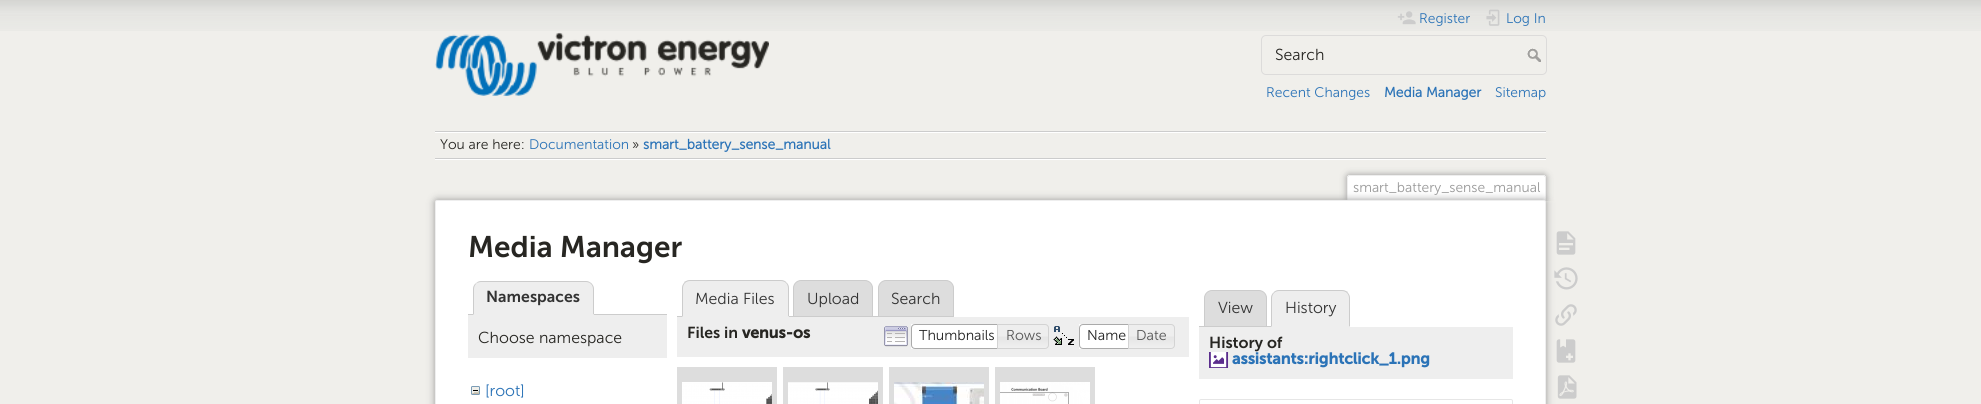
#include <cairo.h>
#include <math.h>
#include <stddef.h>


static void set_color(cairo_t *cr, unsigned color) {
    cairo_set_source_rgb(cr, (color >> 16) / 255.0, (color >> 8 & 255) / 255.0, (color & 255) / 255.0);
}

static void draw_text(cairo_t *cr, double x, double y, const char *s, const char *family, double size, int italic, int bold, unsigned color) {
    cairo_select_font_face(cr, family, italic ? CAIRO_FONT_SLANT_ITALIC : CAIRO_FONT_SLANT_NORMAL,
        bold ? CAIRO_FONT_WEIGHT_BOLD : CAIRO_FONT_WEIGHT_NORMAL);
    cairo_set_font_size(cr, size);
    set_color(cr, color);
    cairo_move_to(cr, x, y);
    cairo_show_text(cr, s);
}

static void fill_rect(cairo_t *cr, double x, double y, double w, double h, unsigned color) {
    set_color(cr, color);
    cairo_rectangle(cr, x, y, w, h);
    cairo_fill(cr);
}

static void rounded_rect(cairo_t *cr, double x, double y, double w, double h, double r) {
    cairo_new_sub_path(cr);
    cairo_arc(cr, x + w - r, y + h - r, r, 0, M_PI / 2);
    cairo_arc(cr, x + r, y + h - r, r, M_PI / 2, M_PI);
    cairo_arc(cr, x + r, y + r, r, M_PI, 1.5 * M_PI);
    cairo_arc(cr, x + w - r, y + r, r, 1.5 * M_PI, 2 * M_PI);
    cairo_close_path(cr);
}

static void draw_shadow(cairo_t *cr, double x, double y, double w, double h, double r, double blur, double alpha) {
    cairo_push_group_with_content(cr, CAIRO_CONTENT_ALPHA);
    cairo_set_operator(cr, CAIRO_OPERATOR_SOURCE);
    for (int i = 15; i >= -15 && fmin(w, h) + blur * i / 3 > 0; i -= 2) {
        double e = blur * i / 6;
        cairo_set_source_rgba(cr, 0, 0, 0, alpha * erfc((i - 1) / 8.5) / 2);
        rounded_rect(cr, x - e, y - e, w + 2 * e, h + 2 * e, fmax(0, fmin(r + e + blur * .6, fmin(w, h) / 2 + e)));
        cairo_fill(cr);
    }
    cairo_pattern_t *soft = cairo_pop_group(cr);
    cairo_mask(cr, soft);
    cairo_pattern_destroy(soft);
}

static void draw_image(cairo_t *cr, const char *path, double x, double y, double w, double h) {
    cairo_surface_t *image = cairo_image_surface_create_from_png(path);
    cairo_save(cr);
    cairo_set_source_surface(cr, image, x, y);
    cairo_rectangle(cr, x, y, w, h);
    cairo_fill(cr);
    cairo_restore(cr);
    cairo_surface_destroy(image);
}

int main(void) {
    cairo_surface_t *surface = cairo_image_surface_create(CAIRO_FORMAT_RGB24, 1981, 404);
    cairo_t *cr = cairo_create(surface);
    cairo_font_options_t *options = cairo_font_options_create();
    cairo_font_options_set_hint_metrics(options, CAIRO_HINT_METRICS_OFF);
    cairo_font_options_set_hint_style(options, CAIRO_HINT_STYLE_NONE);
    cairo_set_font_options(cr, options);
    cairo_set_miter_limit(cr, 4);
    set_color(cr, 0xF0EFEB);
    cairo_paint(cr);
    draw_image(cr, "assets/img1.png", 0, 0, 1981, 31);
    draw_image(cr, "assets/img2.png", 435, 32, 334, 64);
    draw_image(cr, "assets/img3.png", 1397, 11, 19, 14);
    draw_text(cr, 1419, 23, "Register", "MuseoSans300", 13.9, 0, 0, 0x2B73B7);
    draw_image(cr, "assets/img4.png", 1486, 9, 14, 17);
    draw_text(cr, 1506, 23, "Log In", "MuseoSans300", 13.9, 0, 0, 0x2B73B7);
    rounded_rect(cr, 1261.5, 35.5, 285, 39, 4.5);
    set_color(cr, 0xDCDBDA);
    cairo_set_line_width(cr, 1);
    cairo_stroke(cr);
    draw_text(cr, 1275, 60, "Search", "MuseoSans300", 15.9, 0, 0, 0x272622);
    draw_image(cr, "assets/img5.png", 1527, 48, 14, 14);
    draw_text(cr, 1266, 97, "Recent Changes", "MuseoSans300", 13.9, 0, 0, 0x2B73B7);
    draw_text(cr, 1384, 97, "Media Manager", "MuseoSans300", 13.9, 0, 1, 0x2B73B7);
    draw_text(cr, 1495, 97, "Sitemap", "MuseoSans300", 13.9, 0, 0, 0x2B73B7);
    fill_rect(cr, 435, 131, 1111, 1, 0xCCCCCC);
    fill_rect(cr, 435, 159, 1111, 1, 0xFFFFFF);
    fill_rect(cr, 435, 132, 1111, 1, 0xFFFFFF);
    fill_rect(cr, 435, 158, 1111, 1, 0xCCCCCC);
    draw_text(cr, 440, 149, "You are here:", "MuseoSans300", 13.9, 0, 0, 0x272622);
    draw_text(cr, 529, 149, "Documentation", "MuseoSans300", 13.9, 0, 0, 0x2B73B7);
    draw_text(cr, 632, 149, "»", "MuseoSans300", 13.9, 0, 0, 0x272622);
    draw_text(cr, 643, 149, "smart_battery_sense_manual", "MuseoSans300", 13.9, 0, 1, 0x2B73B7);
    cairo_save(cr);
    cairo_rectangle(cr, 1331, 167, 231, 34);
    cairo_clip(cr);
    set_color(cr, 0x999999);
    draw_shadow(cr, 1347, 175, 199, 26, 2, 3.5, 1);
    cairo_restore(cr);
    set_color(cr, 0xFFFFFF);
    cairo_new_path(cr);
    cairo_move_to(cr, 1349, 176);
    cairo_line_to(cr, 1544, 176);
    cairo_curve_to(cr, 1544.5, 176, 1545, 176.5, 1545, 177);
    cairo_line_to(cr, 1545, 201);
    cairo_line_to(cr, 1348, 201);
    cairo_line_to(cr, 1348, 177);
    cairo_curve_to(cr, 1348, 176.5, 1348.5, 176, 1349, 176);
    cairo_close_path(cr);
    cairo_fill(cr);
    fill_rect(cr, 1348, 175, 197, 1, 0xEEEEEE);
    fill_rect(cr, 1545, 176, 1, 25, 0xEEEEEE);
    fill_rect(cr, 1347, 176, 1, 25, 0xEEEEEE);
    draw_text(cr, 1353, 192, "smart_battery_sense_manual", "MuseoSans300", 13.9, 0, 0, 0x999999);
    set_color(cr, 0x999999);
    draw_shadow(cr, 435, 200, 1111, 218, 2, 4, 1);
    set_color(cr, 0xFFFFFF);
    rounded_rect(cr, 435.5, 200.5, 1110, 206, 1.5);
    cairo_fill_preserve(cr);
    set_color(cr, 0xEEEEEE);
    cairo_stroke(cr);
    draw_text(cr, 468, 257, "Media Manager", "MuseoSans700", 29.75, 0, 0, 0x272622);
    fill_rect(cr, 468, 314, 199, 1, 0xCCCCCC);
    set_color(cr, 0xEEEEEE);
    cairo_new_path(cr);
    cairo_move_to(cr, 481, 281);
    cairo_line_to(cr, 586, 281);
    cairo_curve_to(cr, 590.5, 281, 594, 284.5, 594, 289);
    cairo_line_to(cr, 594, 315);
    cairo_line_to(cr, 473, 315);
    cairo_line_to(cr, 473, 289);
    cairo_curve_to(cr, 473, 284.5, 476.5, 281, 481, 281);
    cairo_close_path(cr);
    cairo_fill(cr);
    set_color(cr, 0xCCCCCC);
    cairo_new_path(cr);
    cairo_move_to(cr, 481, 281);
    cairo_curve_to(cr, 479, 281, 477, 282, 476, 284);
    cairo_curve_to(cr, 477, 283, 479, 282, 481, 282);
    cairo_line_to(cr, 586, 282);
    cairo_curve_to(cr, 588, 282, 590, 283, 591, 284);
    cairo_line_to(cr, 592, 284);
    cairo_curve_to(cr, 590, 282, 588, 281, 586, 281);
    cairo_close_path(cr);
    cairo_fill(cr);
    cairo_new_path(cr);
    cairo_move_to(cr, 594, 315);
    cairo_line_to(cr, 594, 289);
    cairo_curve_to(cr, 594, 287, 593, 285, 591.5, 283.5);
    cairo_line_to(cr, 591, 284);
    cairo_curve_to(cr, 592, 285, 593, 287, 593, 289);
    cairo_line_to(cr, 593, 314);
    cairo_close_path(cr);
    cairo_fill(cr);
    set_color(cr, 0xEEEEEE);
    cairo_new_path(cr);
    cairo_move_to(cr, 594, 315);
    cairo_line_to(cr, 593, 314);
    cairo_line_to(cr, 474, 314);
    cairo_line_to(cr, 473, 315);
    cairo_close_path(cr);
    cairo_fill(cr);
    set_color(cr, 0xCCCCCC);
    cairo_new_path(cr);
    cairo_move_to(cr, 473, 315);
    cairo_line_to(cr, 474, 314);
    cairo_line_to(cr, 474, 289);
    cairo_curve_to(cr, 474, 287, 475, 285, 476, 284);
    cairo_line_to(cr, 475.5, 283.5);
    cairo_curve_to(cr, 474, 285, 473, 287, 473, 289);
    cairo_close_path(cr);
    cairo_fill(cr);
    draw_text(cr, 486, 302, "Namespaces", "MuseoSans700", 15.9, 0, 0, 0x333333);
    fill_rect(cr, 468, 315, 199, 43, 0xEEEEEE);
    draw_text(cr, 478, 343, "Choose namespace", "MuseoSans300", 15.9, 0, 0, 0x272622);
    draw_image(cr, "assets/img6.png", 471, 386, 9, 9);
    draw_text(cr, 485, 396, "[root]", "MuseoSans300", 15.9, 0, 0, 0x2B73B7);
    set_color(cr, 0xDDDDDD);
    cairo_new_path(cr);
    cairo_move_to(cr, 801, 280.5);
    cairo_line_to(cr, 865, 280.5);
    cairo_curve_to(cr, 869, 280.5, 872.5, 284, 872.5, 288);
    cairo_line_to(cr, 872.5, 316.5);
    cairo_line_to(cr, 793.5, 316.5);
    cairo_line_to(cr, 793.5, 288);
    cairo_curve_to(cr, 793.5, 284, 797, 280.5, 801, 280.5);
    cairo_close_path(cr);
    cairo_fill_preserve(cr);
    set_color(cr, 0xCCCCCC);
    cairo_stroke(cr);
    fill_rect(cr, 677, 316, 201, 1, 0xCCCCCC);
    set_color(cr, 0xEEEEEE);
    cairo_new_path(cr);
    cairo_move_to(cr, 690, 280);
    cairo_line_to(cr, 781, 280);
    cairo_curve_to(cr, 785.5, 280, 789, 283.5, 789, 288);
    cairo_line_to(cr, 789, 317);
    cairo_line_to(cr, 682, 317);
    cairo_line_to(cr, 682, 288);
    cairo_curve_to(cr, 682, 283.5, 685.5, 280, 690, 280);
    cairo_close_path(cr);
    cairo_fill(cr);
    set_color(cr, 0xCCCCCC);
    cairo_new_path(cr);
    cairo_move_to(cr, 690, 280);
    cairo_curve_to(cr, 688, 280, 686, 281, 684, 282);
    cairo_line_to(cr, 685, 283);
    cairo_curve_to(cr, 686, 282, 688, 281, 690, 281);
    cairo_line_to(cr, 781, 281);
    cairo_curve_to(cr, 783, 281, 785, 282, 786, 283);
    cairo_line_to(cr, 786, 282);
    cairo_curve_to(cr, 785, 281, 783, 280, 781, 280);
    cairo_close_path(cr);
    cairo_fill(cr);
    cairo_new_path(cr);
    cairo_move_to(cr, 789, 317);
    cairo_line_to(cr, 789, 288);
    cairo_curve_to(cr, 789, 286, 788, 284, 786.5, 282.5);
    cairo_line_to(cr, 786, 283);
    cairo_curve_to(cr, 787, 284, 788, 286, 788, 288);
    cairo_line_to(cr, 788, 316);
    cairo_close_path(cr);
    cairo_fill(cr);
    set_color(cr, 0xEEEEEE);
    cairo_new_path(cr);
    cairo_move_to(cr, 789, 317);
    cairo_line_to(cr, 788, 316);
    cairo_line_to(cr, 683, 316);
    cairo_line_to(cr, 682, 317);
    cairo_close_path(cr);
    cairo_fill(cr);
    set_color(cr, 0xCCCCCC);
    cairo_new_path(cr);
    cairo_move_to(cr, 682, 317);
    cairo_line_to(cr, 683, 316);
    cairo_line_to(cr, 683, 288);
    cairo_curve_to(cr, 683, 286, 684, 284, 685, 283);
    cairo_line_to(cr, 684.5, 282.5);
    cairo_curve_to(cr, 683, 284, 682, 286, 682, 288);
    cairo_close_path(cr);
    cairo_fill(cr);
    draw_text(cr, 695, 304, "Media Files", "MuseoSans300", 15.9, 0, 0, 0x333333);
    draw_text(cr, 807, 304, "Upload", "MuseoSans300", 15.9, 0, 0, 0x333333);
    set_color(cr, 0xDDDDDD);
    cairo_new_path(cr);
    cairo_move_to(cr, 886, 280.5);
    cairo_line_to(cr, 946, 280.5);
    cairo_curve_to(cr, 950, 280.5, 953.5, 284, 953.5, 288);
    cairo_line_to(cr, 953.5, 316.5);
    cairo_line_to(cr, 878.5, 316.5);
    cairo_line_to(cr, 878.5, 288);
    cairo_curve_to(cr, 878.5, 284, 882, 280.5, 886, 280.5);
    cairo_close_path(cr);
    cairo_fill_preserve(cr);
    set_color(cr, 0xCCCCCC);
    cairo_stroke(cr);
    draw_text(cr, 891, 304, "Search", "MuseoSans300", 15.9, 0, 0, 0x333333);
    fill_rect(cr, 677, 317, 512, 40, 0xEEEEEE);
    draw_text(cr, 687, 338, "Files in", "MuseoSans700", 15.9, 0, 0, 0x272622);
    draw_text(cr, 742, 338, "venus-os", "MuseoSans700", 15.9, 0, 1, 0x272622);
    draw_image(cr, "assets/img7.png", 884, 326, 24, 21);
    fill_rect(cr, 911, 324, 86, 25, 0xFFFFFF);
    cairo_new_path(cr);
    cairo_move_to(cr, 915, 324.5);
    cairo_line_to(cr, 1002.5, 324.5);
    cairo_line_to(cr, 1002.5, 348.5);
    cairo_line_to(cr, 915, 348.5);
    cairo_curve_to(cr, 913, 348.5, 911.5, 347, 911.5, 345);
    cairo_line_to(cr, 911.5, 328);
    cairo_curve_to(cr, 911.5, 326, 913, 324.5, 915, 324.5);
    cairo_close_path(cr);
    set_color(cr, 0xAAAAAA);
    cairo_stroke(cr);
    draw_text(cr, 919, 340, "Thumbnails", "MuseoSans300", 14.25, 0, 0, 0x212121);
    draw_image(cr, "assets/img8.png", 998, 324, 51, 25);
    cairo_new_path(cr);
    cairo_move_to(cr, 997.5, 324.5);
    cairo_line_to(cr, 1045, 324.5);
    cairo_curve_to(cr, 1047, 324.5, 1048.5, 326, 1048.5, 328);
    cairo_line_to(cr, 1048.5, 345);
    cairo_curve_to(cr, 1048.5, 347, 1047, 348.5, 1045, 348.5);
    cairo_line_to(cr, 997.5, 348.5);
    cairo_close_path(cr);
    set_color(cr, 0xD3D3D3);
    cairo_stroke(cr);
    draw_text(cr, 1006, 340, "Rows", "MuseoSans300", 14.25, 0, 0, 0x555555);
    draw_image(cr, "assets/img9.png", 1053, 326, 21, 19);
    fill_rect(cr, 1079, 324, 49, 25, 0xFFFFFF);
    cairo_new_path(cr);
    cairo_move_to(cr, 1083, 324.5);
    cairo_line_to(cr, 1133.5, 324.5);
    cairo_line_to(cr, 1133.5, 348.5);
    cairo_line_to(cr, 1083, 348.5);
    cairo_curve_to(cr, 1081, 348.5, 1079.5, 347, 1079.5, 345);
    cairo_line_to(cr, 1079.5, 328);
    cairo_curve_to(cr, 1079.5, 326, 1081, 324.5, 1083, 324.5);
    cairo_close_path(cr);
    set_color(cr, 0xAAAAAA);
    cairo_stroke(cr);
    draw_text(cr, 1087, 340, "Name", "MuseoSans300", 14.25, 0, 0, 0x212121);
    draw_image(cr, "assets/img10.png", 1129, 324, 46, 25);
    cairo_new_path(cr);
    cairo_move_to(cr, 1128.5, 324.5);
    cairo_line_to(cr, 1171, 324.5);
    cairo_curve_to(cr, 1173, 324.5, 1174.5, 326, 1174.5, 328);
    cairo_line_to(cr, 1174.5, 345);
    cairo_curve_to(cr, 1174.5, 347, 1173, 348.5, 1171, 348.5);
    cairo_line_to(cr, 1128.5, 348.5);
    cairo_close_path(cr);
    set_color(cr, 0xD3D3D3);
    cairo_stroke(cr);
    draw_text(cr, 1136, 340, "Date", "MuseoSans300", 14.25, 0, 0, 0x555555);
    fill_rect(cr, 677, 367, 100, 37, 0xDDDDDD);
    draw_image(cr, "assets/img11.png", 682, 382, 90, 22);
    fill_rect(cr, 783, 367, 100, 37, 0xDDDDDD);
    draw_image(cr, "assets/img12.png", 788, 382, 90, 22);
    fill_rect(cr, 889, 367, 100, 37, 0xDDDDDD);
    draw_image(cr, "assets/img13.png", 894, 382, 90, 22);
    fill_rect(cr, 995, 367, 100, 37, 0xDDDDDD);
    draw_image(cr, "assets/img14.png", 1000, 382, 90, 22);
    cairo_new_path(cr);
    cairo_move_to(cr, 1212, 290.5);
    cairo_line_to(cr, 1259, 290.5);
    cairo_curve_to(cr, 1263, 290.5, 1266.5, 294, 1266.5, 298);
    cairo_line_to(cr, 1266.5, 326.5);
    cairo_line_to(cr, 1204.5, 326.5);
    cairo_line_to(cr, 1204.5, 298);
    cairo_curve_to(cr, 1204.5, 294, 1208, 290.5, 1212, 290.5);
    cairo_close_path(cr);
    cairo_fill_preserve(cr);
    set_color(cr, 0xCCCCCC);
    cairo_stroke(cr);
    draw_text(cr, 1218, 313, "View", "MuseoSans300", 15.9, 0, 0, 0x333333);
    set_color(cr, 0xEEEEEE);
    cairo_new_path(cr);
    cairo_move_to(cr, 1279, 290);
    cairo_line_to(cr, 1342, 290);
    cairo_curve_to(cr, 1346.5, 290, 1350, 293.5, 1350, 298);
    cairo_line_to(cr, 1350, 327);
    cairo_line_to(cr, 1271, 327);
    cairo_line_to(cr, 1271, 298);
    cairo_curve_to(cr, 1271, 293.5, 1274.5, 290, 1279, 290);
    cairo_close_path(cr);
    cairo_fill(cr);
    set_color(cr, 0xCCCCCC);
    cairo_new_path(cr);
    cairo_move_to(cr, 1279, 290);
    cairo_curve_to(cr, 1277, 290, 1275, 291, 1274, 292);
    cairo_line_to(cr, 1274, 293);
    cairo_curve_to(cr, 1275, 292, 1277, 291, 1279, 291);
    cairo_line_to(cr, 1342, 291);
    cairo_curve_to(cr, 1344, 291, 1346, 292, 1347, 293);
    cairo_line_to(cr, 1348, 292);
    cairo_curve_to(cr, 1346, 291, 1344, 290, 1342, 290);
    cairo_close_path(cr);
    cairo_fill(cr);
    cairo_new_path(cr);
    cairo_move_to(cr, 1350, 327);
    cairo_line_to(cr, 1350, 298);
    cairo_curve_to(cr, 1350, 296, 1349, 294, 1347.5, 292.5);
    cairo_line_to(cr, 1347, 293);
    cairo_curve_to(cr, 1348, 294, 1349, 296, 1349, 298);
    cairo_line_to(cr, 1349, 326);
    cairo_close_path(cr);
    cairo_fill(cr);
    set_color(cr, 0xEEEEEE);
    cairo_new_path(cr);
    cairo_move_to(cr, 1350, 327);
    cairo_line_to(cr, 1349, 326);
    cairo_line_to(cr, 1272, 326);
    cairo_line_to(cr, 1271, 327);
    cairo_close_path(cr);
    cairo_fill(cr);
    set_color(cr, 0xCCCCCC);
    cairo_new_path(cr);
    cairo_move_to(cr, 1271, 327);
    cairo_line_to(cr, 1272, 326);
    cairo_line_to(cr, 1272, 298);
    cairo_curve_to(cr, 1272, 296, 1273, 294, 1274, 293);
    cairo_line_to(cr, 1273.5, 292.5);
    cairo_curve_to(cr, 1272, 294, 1271, 296, 1271, 298);
    cairo_close_path(cr);
    cairo_fill(cr);
    draw_text(cr, 1285, 313, "History", "MuseoSans300", 15.9, 0, 0, 0x333333);
    fill_rect(cr, 1199, 326, 72, 1, 0xCCCCCC);
    fill_rect(cr, 1199, 327, 314, 52, 0xEEEEEE);
    draw_text(cr, 1209, 348, "History of", "MuseoSans700", 15.9, 0, 0, 0x272622);
    draw_image(cr, "assets/img15.png", 1209, 352, 20, 16);
    draw_text(cr, 1232, 364, "assistants:rightclick_1.png", "MuseoSans700", 15.9, 0, 1, 0x2B73B7);
    rounded_rect(cr, 1199.5, 399.5, 313, 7, 1.5);
    set_color(cr, 0xE6E6E6);
    cairo_stroke(cr);
    draw_image(cr, "assets/img16.png", 1556, 231, 20, 24);
    draw_image(cr, "assets/img17.png", 1554, 267, 24, 23);
    draw_image(cr, "assets/img18.png", 1555, 304, 22, 22);
    draw_image(cr, "assets/img19.png", 1556, 339, 20, 24);
    draw_image(cr, "assets/img20.png", 1557, 375, 20, 24);
    cairo_surface_write_to_png(surface, "output.png");
    cairo_font_options_destroy(options);
    cairo_destroy(cr);
    cairo_surface_destroy(surface);
    return 0;
}
